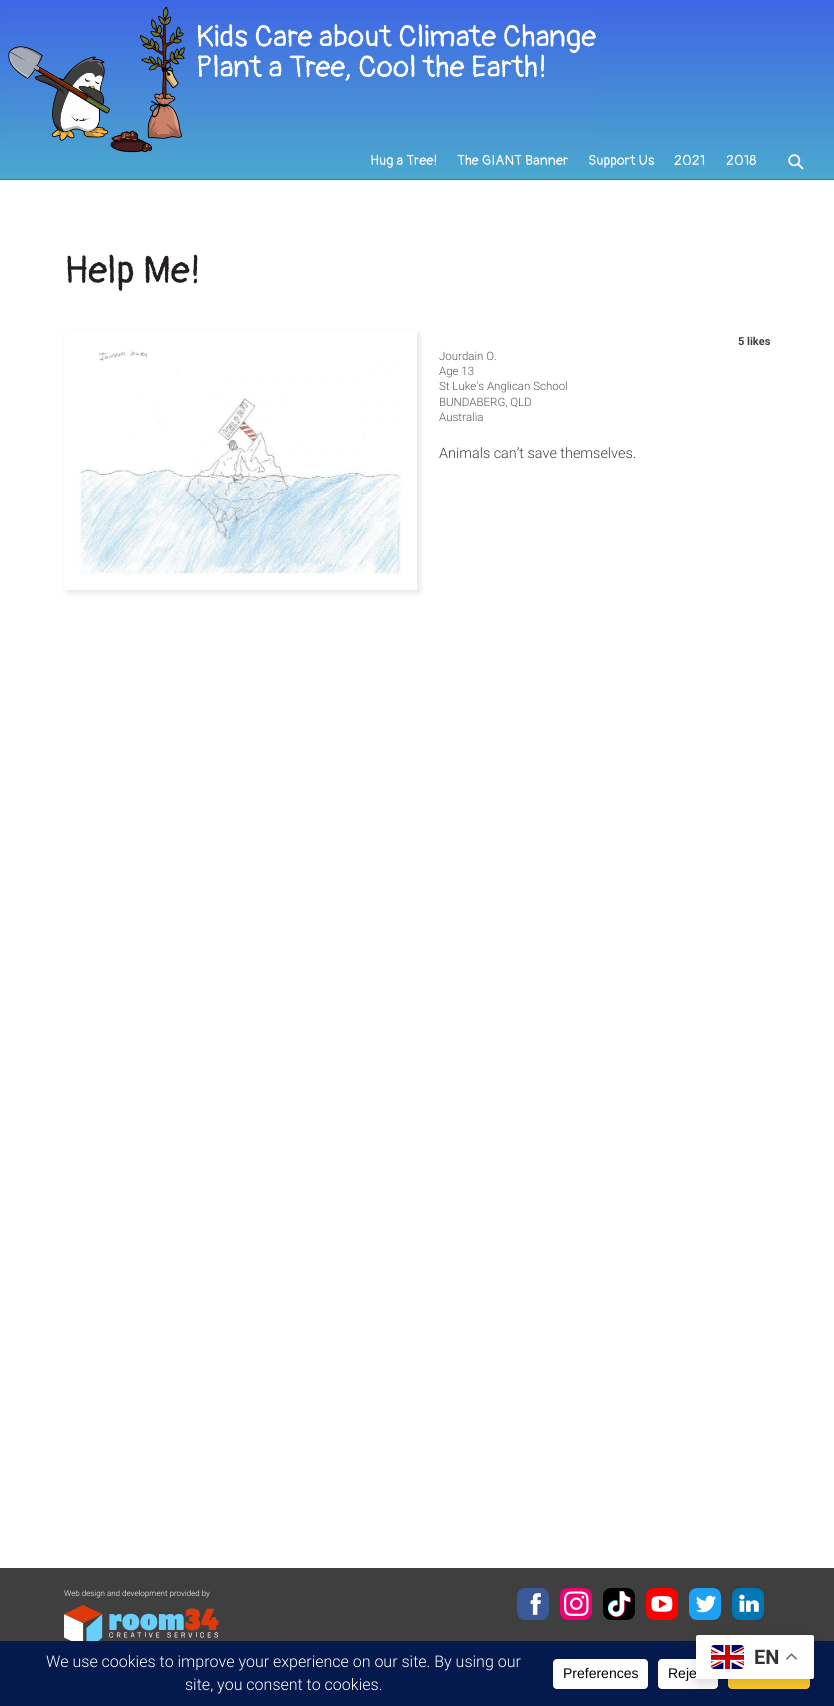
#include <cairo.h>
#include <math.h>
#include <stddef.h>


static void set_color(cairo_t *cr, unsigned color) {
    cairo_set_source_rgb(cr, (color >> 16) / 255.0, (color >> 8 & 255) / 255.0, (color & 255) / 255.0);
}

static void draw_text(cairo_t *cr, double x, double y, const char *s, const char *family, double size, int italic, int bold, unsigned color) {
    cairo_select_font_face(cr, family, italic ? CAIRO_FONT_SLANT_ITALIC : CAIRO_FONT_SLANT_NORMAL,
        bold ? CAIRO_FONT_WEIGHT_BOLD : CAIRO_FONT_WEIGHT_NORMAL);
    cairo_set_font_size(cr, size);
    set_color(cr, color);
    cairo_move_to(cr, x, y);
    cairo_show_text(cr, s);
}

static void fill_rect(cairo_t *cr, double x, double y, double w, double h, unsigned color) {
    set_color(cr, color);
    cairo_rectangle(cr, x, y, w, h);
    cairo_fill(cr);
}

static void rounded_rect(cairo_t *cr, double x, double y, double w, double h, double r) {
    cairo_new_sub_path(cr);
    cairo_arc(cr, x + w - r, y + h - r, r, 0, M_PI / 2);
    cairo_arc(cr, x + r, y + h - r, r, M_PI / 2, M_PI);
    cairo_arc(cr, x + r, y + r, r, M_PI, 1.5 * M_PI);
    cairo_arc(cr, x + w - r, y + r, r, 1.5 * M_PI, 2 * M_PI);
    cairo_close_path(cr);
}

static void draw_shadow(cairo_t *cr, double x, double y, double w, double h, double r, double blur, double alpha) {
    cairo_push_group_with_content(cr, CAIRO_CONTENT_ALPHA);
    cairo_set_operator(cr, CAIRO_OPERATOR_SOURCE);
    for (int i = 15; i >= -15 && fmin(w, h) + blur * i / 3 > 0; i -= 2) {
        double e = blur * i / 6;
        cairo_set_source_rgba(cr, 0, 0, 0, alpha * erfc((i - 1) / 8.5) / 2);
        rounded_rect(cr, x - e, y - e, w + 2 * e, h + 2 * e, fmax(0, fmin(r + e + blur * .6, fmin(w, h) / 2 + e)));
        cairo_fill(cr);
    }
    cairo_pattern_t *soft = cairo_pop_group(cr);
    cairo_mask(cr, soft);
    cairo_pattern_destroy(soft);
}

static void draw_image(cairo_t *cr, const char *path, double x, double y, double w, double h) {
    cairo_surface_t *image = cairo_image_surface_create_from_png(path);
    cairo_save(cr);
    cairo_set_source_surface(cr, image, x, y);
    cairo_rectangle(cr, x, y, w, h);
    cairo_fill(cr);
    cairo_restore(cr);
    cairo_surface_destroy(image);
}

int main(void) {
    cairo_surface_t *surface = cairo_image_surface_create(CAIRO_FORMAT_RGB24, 834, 1706);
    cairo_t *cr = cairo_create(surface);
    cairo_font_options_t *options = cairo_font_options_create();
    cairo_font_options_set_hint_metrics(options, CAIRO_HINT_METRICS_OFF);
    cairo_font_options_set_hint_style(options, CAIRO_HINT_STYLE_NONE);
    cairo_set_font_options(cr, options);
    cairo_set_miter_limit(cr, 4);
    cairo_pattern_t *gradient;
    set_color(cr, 0xFFFFFF);
    cairo_paint(cr);
    gradient = cairo_pattern_create_linear(417, 0, 417, 179);
    cairo_pattern_add_color_stop_rgba(gradient, 0, 0.243, 0.4, 0.894, 1);
    cairo_pattern_add_color_stop_rgba(gradient, 1, 0.294, 0.663, 0.808, 1);
    cairo_set_source(cr, gradient);
    cairo_pattern_destroy(gradient);
    cairo_rectangle(cr, 0, 0, 834, 179);
    cairo_fill(cr);
    gradient = cairo_pattern_create_linear(417, 179, 417, 358);
    cairo_pattern_add_color_stop_rgba(gradient, 0, 0.243, 0.4, 0.894, 1);
    cairo_pattern_add_color_stop_rgba(gradient, 1, 0.294, 0.663, 0.808, 1);
    cairo_set_source(cr, gradient);
    cairo_pattern_destroy(gradient);
    cairo_rectangle(cr, 0, 179, 834, 1);
    cairo_fill(cr);
    draw_image(cr, "assets/img1.png", 8, 6, 589, 147);
    draw_text(cr, 370, 165, "Hug a Tree!", "Pangolin", 14.25, 0, 0, 0xFFFFFF);
    draw_text(cr, 457, 165, "The GIANT Banner", "Pangolin", 14.25, 0, 0, 0xFFFFFF);
    draw_text(cr, 588, 165, "Support Us", "Pangolin", 14.25, 0, 0, 0xFFFFFF);
    draw_text(cr, 674, 165, "2021", "Pangolin", 14.25, 0, 0, 0xFFFFFF);
    draw_text(cr, 726, 165, "2018", "Pangolin", 14.25, 0, 0, 0xFFFFFF);
    draw_image(cr, "assets/img2.png", 788, 154, 16, 16);
    draw_text(cr, 64, 283, "Help Me!", "Pangolin", 38.5, 0, 0, 0x231F20);
    cairo_save(cr);
    cairo_set_fill_rule(cr, CAIRO_FILL_RULE_EVEN_ODD);
    cairo_new_path(cr);
    cairo_move_to(cr, 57, 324);
    cairo_line_to(cr, 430, 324);
    cairo_line_to(cr, 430, 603);
    cairo_line_to(cr, 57, 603);
    cairo_close_path(cr);
    cairo_move_to(cr, 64, 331);
    cairo_line_to(cr, 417, 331);
    cairo_line_to(cr, 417, 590);
    cairo_line_to(cr, 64, 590);
    cairo_close_path(cr);
    cairo_clip(cr);
    set_color(cr, 0x000000);
    draw_shadow(cr, 67, 334, 353, 259, 0, 3, 0.1);
    cairo_restore(cr);
    draw_image(cr, "assets/img3.png", 79, 349, 323, 226);
    draw_text(cr, 738, 345, "5 likes", "Roboto", 11, 0, 1, 0x3F3F3F);
    draw_text(cr, 439, 360, "Jourdain O.", "Roboto Light", 11.5, 0, 0, 0x555555);
    draw_text(cr, 439, 375, "Age 13", "Roboto Light", 11.5, 0, 0, 0x555555);
    draw_text(cr, 439, 390, "St Luke's Anglican School", "Roboto Light", 11.5, 0, 0, 0x555555);
    draw_text(cr, 439, 406, "BUNDABERG, QLD", "Roboto Light", 11.5, 0, 0, 0x555555);
    draw_text(cr, 439, 421, "Australia", "Roboto Light", 11.5, 0, 0, 0x555555);
    draw_text(cr, 439, 458, "Animals can’t save themselves.", "Roboto Light", 14.4, 0, 0, 0x3F3F3F);
    fill_rect(cr, 0, 1568, 834, 73, 0x3F3F3F);
    draw_text(cr, 64, 1596, "Web design and development provided by", "Roboto Light", 8, 0, 0, 0xFFFFFF);
    draw_image(cr, "assets/img4.png", 64, 1605, 155, 36);
    draw_image(cr, "assets/img5.png", 517, 1588, 32, 32);
    draw_image(cr, "assets/img6.png", 560, 1588, 32, 32);
    draw_image(cr, "assets/img7.png", 603, 1588, 32, 32);
    draw_image(cr, "assets/img8.png", 646, 1588, 32, 32);
    draw_image(cr, "assets/img9.png", 689, 1588, 32, 32);
    draw_image(cr, "assets/img10.png", 732, 1588, 32, 32);
    fill_rect(cr, 0, 1641, 834, 65, 0x04194E);
    draw_text(cr, 46, 1667, "We use cookies to improve your experience on our site. By using our", "Roboto Light", 16, 0, 0, 0xFFFFFF);
    draw_text(cr, 185, 1690, "site, you consent to cookies.", "Roboto Light", 16, 0, 0, 0xFFFFFF);
    rounded_rect(cr, 553, 1659, 95, 30, 4);
    cairo_fill(cr);
    draw_text(cr, 563, 1678, "Preferences", "Liberation Sans", 14, 0, 0, 0x000000);
    set_color(cr, 0xFFFFFF);
    rounded_rect(cr, 658, 1659, 60, 30, 4);
    cairo_fill(cr);
    draw_text(cr, 668, 1678, "Reje", "Liberation Sans", 14, 0, 0, 0x000000);
    set_color(cr, 0xFFCD2A);
    rounded_rect(cr, 728, 1659, 82, 30, 4);
    cairo_fill(cr);
    set_color(cr, 0x000000);
    draw_shadow(cr, 696, 1640, 118, 44, 2, 7.5, 0.15);
    set_color(cr, 0xFFFFFF);
    rounded_rect(cr, 696, 1635, 118, 44, 2);
    cairo_fill(cr);
    draw_image(cr, "assets/img11.png", 711, 1645, 33, 24);
    draw_text(cr, 754, 1664, "EN", "Roboto", 20, 0, 1, 0x333333);
    draw_image(cr, "assets/img12.png", 786, 1653, 11, 7);
    cairo_surface_write_to_png(surface, "output.png");
    cairo_font_options_destroy(options);
    cairo_destroy(cr);
    cairo_surface_destroy(surface);
    return 0;
}
